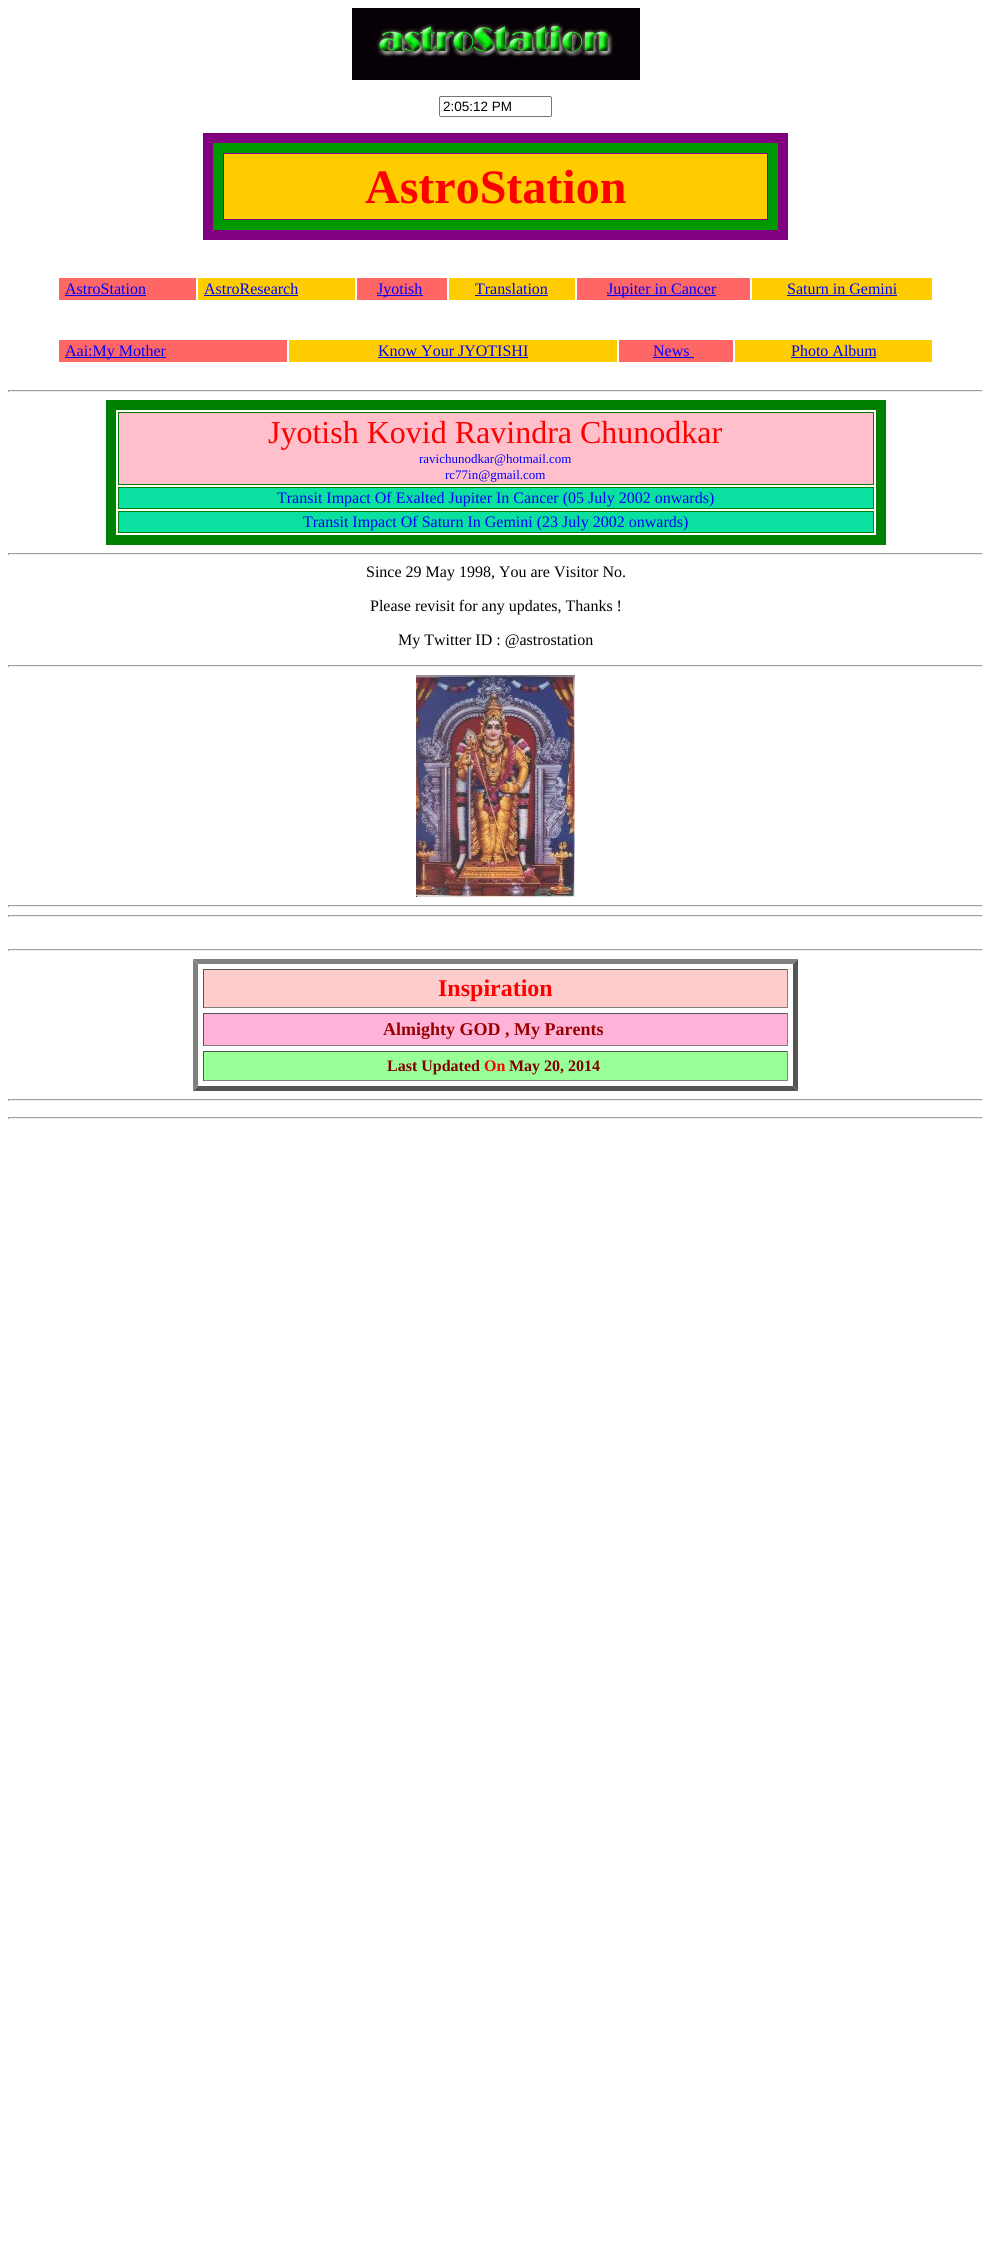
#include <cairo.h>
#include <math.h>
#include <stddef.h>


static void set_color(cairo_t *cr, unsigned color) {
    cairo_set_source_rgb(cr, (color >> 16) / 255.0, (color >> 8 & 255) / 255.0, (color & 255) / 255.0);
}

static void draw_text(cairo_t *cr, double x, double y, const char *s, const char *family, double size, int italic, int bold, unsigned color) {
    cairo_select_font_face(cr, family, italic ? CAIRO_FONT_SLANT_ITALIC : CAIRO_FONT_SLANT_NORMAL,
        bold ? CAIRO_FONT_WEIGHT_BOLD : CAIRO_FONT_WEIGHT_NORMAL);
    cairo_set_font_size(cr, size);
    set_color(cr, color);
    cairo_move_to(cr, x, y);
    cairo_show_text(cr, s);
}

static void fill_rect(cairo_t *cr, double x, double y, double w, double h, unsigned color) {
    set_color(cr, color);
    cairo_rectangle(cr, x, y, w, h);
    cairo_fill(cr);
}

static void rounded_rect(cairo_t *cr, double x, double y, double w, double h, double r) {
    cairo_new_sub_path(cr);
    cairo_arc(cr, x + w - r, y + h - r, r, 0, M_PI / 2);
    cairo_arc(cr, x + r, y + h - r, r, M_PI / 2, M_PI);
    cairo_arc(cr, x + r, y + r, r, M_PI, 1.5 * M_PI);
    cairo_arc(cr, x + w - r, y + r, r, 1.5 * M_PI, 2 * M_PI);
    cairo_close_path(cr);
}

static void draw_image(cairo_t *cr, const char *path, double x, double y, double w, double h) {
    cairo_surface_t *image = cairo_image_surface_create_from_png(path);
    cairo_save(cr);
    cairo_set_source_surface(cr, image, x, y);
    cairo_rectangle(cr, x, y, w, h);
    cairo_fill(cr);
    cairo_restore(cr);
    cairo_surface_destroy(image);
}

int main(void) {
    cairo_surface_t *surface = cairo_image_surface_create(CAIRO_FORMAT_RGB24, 991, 2248);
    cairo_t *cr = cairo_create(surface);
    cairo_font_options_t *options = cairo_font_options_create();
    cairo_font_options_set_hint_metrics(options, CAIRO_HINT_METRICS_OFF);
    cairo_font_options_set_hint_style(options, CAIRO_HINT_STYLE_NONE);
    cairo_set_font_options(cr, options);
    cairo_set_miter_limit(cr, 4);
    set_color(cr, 0xFFFFFF);
    cairo_paint(cr);
    draw_image(cr, "assets/img1.png", 352, 8, 288, 72);
    rounded_rect(cr, 439.5, 96.5, 112, 20, 1.5);
    set_color(cr, 0x767676);
    cairo_set_line_width(cr, 1);
    cairo_stroke(cr);
    draw_text(cr, 443, 111, "2:05:12 PM", "Liberation Sans", 13.5, 0, 0, 0x000000);
    set_color(cr, 0x009900);
    cairo_rectangle(cr, 208, 138, 575, 97);
    cairo_fill_preserve(cr);
    set_color(cr, 0x800080);
    cairo_set_line_width(cr, 10);
    cairo_stroke(cr);
    set_color(cr, 0xFFCC00);
    cairo_rectangle(cr, 223.5, 153.5, 544, 66);
    cairo_fill_preserve(cr);
    set_color(cr, 0x800080);
    cairo_set_line_width(cr, 1);
    cairo_stroke(cr);
    draw_text(cr, 365, 203, "AstroStation", "Liberation Serif", 48, 0, 1, 0xFF0000);
    fill_rect(cr, 59, 278, 137, 22, 0xFF6666);
    draw_text(cr, 65, 294, "AstroStation", "Liberation Serif", 16, 0, 0, 0x0000FF);
    fill_rect(cr, 65, 295, 81, 1, 0x0000FF);
    fill_rect(cr, 198, 278, 157, 22, 0xFFCC00);
    draw_text(cr, 204, 294, "AstroResearch", "Liberation Serif", 16, 0, 0, 0x0000FF);
    fill_rect(cr, 204, 295, 94, 1, 0x0000FF);
    fill_rect(cr, 357, 278, 90, 22, 0xFF6666);
    fill_rect(cr, 377, 295, 46, 1, 0x0000FF);
    draw_text(cr, 377, 294, "Jyotish", "Liberation Serif", 16, 0, 0, 0x0000FF);
    fill_rect(cr, 449, 278, 126, 22, 0xFFCC00);
    draw_text(cr, 475, 294, "Translation", "Liberation Serif", 16, 0, 0, 0x0000FF);
    fill_rect(cr, 475, 295, 73, 1, 0x0000FF);
    fill_rect(cr, 577, 278, 173, 22, 0xFF6666);
    fill_rect(cr, 607, 295, 109, 1, 0x0000FF);
    draw_text(cr, 607, 294, "Jupiter in Cancer", "Liberation Serif", 16, 0, 0, 0x0000FF);
    fill_rect(cr, 752, 278, 180, 22, 0xFFCC00);
    draw_text(cr, 787, 294, "Saturn in Gemini", "Liberation Serif", 16, 0, 0, 0x0000FF);
    fill_rect(cr, 787, 295, 110, 1, 0x0000FF);
    fill_rect(cr, 59, 340, 228, 22, 0xFF6666);
    fill_rect(cr, 65, 357, 101, 1, 0x0000FF);
    draw_text(cr, 65, 356, "Aai:My Mother", "Liberation Serif", 16, 0, 0, 0x0000FF);
    fill_rect(cr, 289, 340, 328, 22, 0xFFCC00);
    draw_text(cr, 378, 356, "Know Your JYOTISHI", "Liberation Serif", 16, 0, 0, 0x0000FF);
    fill_rect(cr, 378, 357, 150, 1, 0x0000FF);
    fill_rect(cr, 619, 340, 114, 22, 0xFF6666);
    draw_text(cr, 653, 356, "News", "Liberation Serif", 16, 0, 0, 0x0000FF);
    fill_rect(cr, 653, 357, 41, 1, 0x0000FF);
    fill_rect(cr, 735, 340, 197, 22, 0xFFCC00);
    draw_text(cr, 791, 356, "Photo Album", "Liberation Serif", 16, 0, 0, 0x0000FF);
    fill_rect(cr, 791, 357, 85, 1, 0x0000FF);
    fill_rect(cr, 8, 390, 975, 1, 0x9F9F9F);
    fill_rect(cr, 982, 390, 1, 2, 0xEEEEEE);
    fill_rect(cr, 8, 391, 975, 1, 0xEEEEEE);
    fill_rect(cr, 8, 390, 1, 2, 0x9F9F9F);
    cairo_rectangle(cr, 111, 405, 770, 135);
    set_color(cr, 0x008000);
    cairo_set_line_width(cr, 10);
    cairo_stroke(cr);
    set_color(cr, 0xFFC0CB);
    cairo_rectangle(cr, 118.5, 412.5, 755, 72);
    cairo_fill_preserve(cr);
    set_color(cr, 0x008000);
    cairo_set_line_width(cr, 1);
    cairo_stroke(cr);
    draw_text(cr, 268, 443, "Jyotish Kovid Ravindra Chunodkar", "Liberation Serif", 32, 0, 0, 0xFF0000);
    draw_text(cr, 419, 463, "ravichunodkar@hotmail.com", "Liberation Serif", 13, 0, 0, 0x0000FF);
    draw_text(cr, 445, 479, "rc77in@gmail.com", "Liberation Serif", 13, 0, 0, 0x0000FF);
    set_color(cr, 0x0AE0A0);
    cairo_rectangle(cr, 118.5, 487.5, 755, 21);
    cairo_fill_preserve(cr);
    set_color(cr, 0x008000);
    cairo_stroke(cr);
    draw_text(cr, 277, 503, "Transit Impact Of Exalted Jupiter In Cancer (05 July 2002 onwards)", "Liberation Serif", 16, 0, 0, 0x0000FF);
    set_color(cr, 0x0AE0A0);
    cairo_rectangle(cr, 118.5, 511.5, 755, 21);
    cairo_fill_preserve(cr);
    set_color(cr, 0x008000);
    cairo_stroke(cr);
    draw_text(cr, 303, 527, "Transit Impact Of Saturn In Gemini (23 July 2002 onwards)", "Liberation Serif", 16, 0, 0, 0x0000FF);
    fill_rect(cr, 8, 553, 975, 1, 0x9F9F9F);
    fill_rect(cr, 982, 553, 1, 2, 0xEEEEEE);
    fill_rect(cr, 8, 554, 975, 1, 0xEEEEEE);
    fill_rect(cr, 8, 553, 1, 2, 0x9F9F9F);
    draw_text(cr, 366, 577, "Since 29 May 1998, You are Visitor No.", "Liberation Serif", 16, 0, 0, 0x000000);
    draw_text(cr, 370, 611, "Please revisit for any updates, Thanks !", "Liberation Serif", 16, 0, 0, 0x000000);
    draw_text(cr, 398, 645, "My Twitter ID : @astrostation", "Liberation Serif", 16, 0, 0, 0x000000);
    fill_rect(cr, 8, 665, 975, 1, 0x9F9F9F);
    fill_rect(cr, 982, 665, 1, 2, 0xEEEEEE);
    fill_rect(cr, 8, 666, 975, 1, 0xEEEEEE);
    fill_rect(cr, 8, 665, 1, 2, 0x9F9F9F);
    draw_image(cr, "assets/img2.png", 416, 675, 159, 222);
    fill_rect(cr, 8, 905, 975, 1, 0x9F9F9F);
    fill_rect(cr, 982, 905, 1, 2, 0xEEEEEE);
    fill_rect(cr, 8, 906, 975, 1, 0xEEEEEE);
    fill_rect(cr, 8, 905, 1, 2, 0x9F9F9F);
    fill_rect(cr, 8, 915, 975, 1, 0x9F9F9F);
    fill_rect(cr, 982, 915, 1, 2, 0xEEEEEE);
    fill_rect(cr, 8, 916, 975, 1, 0xEEEEEE);
    fill_rect(cr, 8, 915, 1, 2, 0x9F9F9F);
    fill_rect(cr, 8, 949, 975, 1, 0x9F9F9F);
    fill_rect(cr, 982, 949, 1, 2, 0xEEEEEE);
    fill_rect(cr, 8, 950, 975, 1, 0xEEEEEE);
    fill_rect(cr, 8, 949, 1, 2, 0x9F9F9F);
    set_color(cr, 0x808080);
    cairo_new_path(cr);
    cairo_move_to(cr, 193, 959);
    cairo_line_to(cr, 798, 959);
    cairo_line_to(cr, 793, 964);
    cairo_line_to(cr, 198, 964);
    cairo_close_path(cr);
    cairo_fill(cr);
    set_color(cr, 0x555555);
    cairo_new_path(cr);
    cairo_move_to(cr, 798, 959);
    cairo_line_to(cr, 798, 1091);
    cairo_line_to(cr, 793, 1086);
    cairo_line_to(cr, 793, 964);
    cairo_close_path(cr);
    cairo_fill(cr);
    cairo_new_path(cr);
    cairo_move_to(cr, 798, 1091);
    cairo_line_to(cr, 193, 1091);
    cairo_line_to(cr, 198, 1086);
    cairo_line_to(cr, 793, 1086);
    cairo_close_path(cr);
    cairo_fill(cr);
    set_color(cr, 0x808080);
    cairo_new_path(cr);
    cairo_move_to(cr, 193, 1091);
    cairo_line_to(cr, 193, 959);
    cairo_line_to(cr, 198, 964);
    cairo_line_to(cr, 198, 1086);
    cairo_close_path(cr);
    cairo_fill(cr);
    fill_rect(cr, 204, 970, 583, 37, 0xFFCCCC);
    fill_rect(cr, 203, 969, 585, 1, 0x555555);
    fill_rect(cr, 787, 969, 1, 39, 0x808080);
    fill_rect(cr, 203, 1007, 585, 1, 0x808080);
    fill_rect(cr, 203, 969, 1, 39, 0x555555);
    draw_text(cr, 438, 996, "Inspiration", "Liberation Serif", 24, 0, 1, 0xFF0000);
    fill_rect(cr, 204, 1014, 583, 31, 0xFFB3D9);
    fill_rect(cr, 203, 1013, 585, 1, 0x555555);
    fill_rect(cr, 787, 1013, 1, 33, 0x808080);
    fill_rect(cr, 203, 1045, 585, 1, 0x808080);
    fill_rect(cr, 203, 1013, 1, 33, 0x555555);
    draw_text(cr, 383, 1035, "Almighty GOD , My Parents", "Liberation Serif", 18, 0, 1, 0x990000);
    fill_rect(cr, 204, 1052, 583, 28, 0x99FF99);
    fill_rect(cr, 203, 1051, 585, 1, 0x555555);
    fill_rect(cr, 787, 1051, 1, 30, 0x808080);
    fill_rect(cr, 203, 1080, 585, 1, 0x808080);
    fill_rect(cr, 203, 1051, 1, 30, 0x555555);
    draw_text(cr, 387, 1071, "Last Updated", "Liberation Serif", 16, 0, 1, 0x800000);
    draw_text(cr, 484, 1071, "On", "Liberation Serif", 16, 0, 1, 0xFF0000);
    draw_text(cr, 509, 1071, "May 20, 2014", "Liberation Serif", 16, 0, 1, 0x800000);
    fill_rect(cr, 8, 1099, 975, 1, 0x9F9F9F);
    fill_rect(cr, 982, 1099, 1, 2, 0xEEEEEE);
    fill_rect(cr, 8, 1100, 975, 1, 0xEEEEEE);
    fill_rect(cr, 8, 1099, 1, 2, 0x9F9F9F);
    fill_rect(cr, 8, 1117, 975, 1, 0x9F9F9F);
    fill_rect(cr, 982, 1117, 1, 2, 0xEEEEEE);
    fill_rect(cr, 8, 1118, 975, 1, 0xEEEEEE);
    fill_rect(cr, 8, 1117, 1, 2, 0x9F9F9F);
    cairo_surface_write_to_png(surface, "output.png");
    cairo_font_options_destroy(options);
    cairo_destroy(cr);
    cairo_surface_destroy(surface);
    return 0;
}
